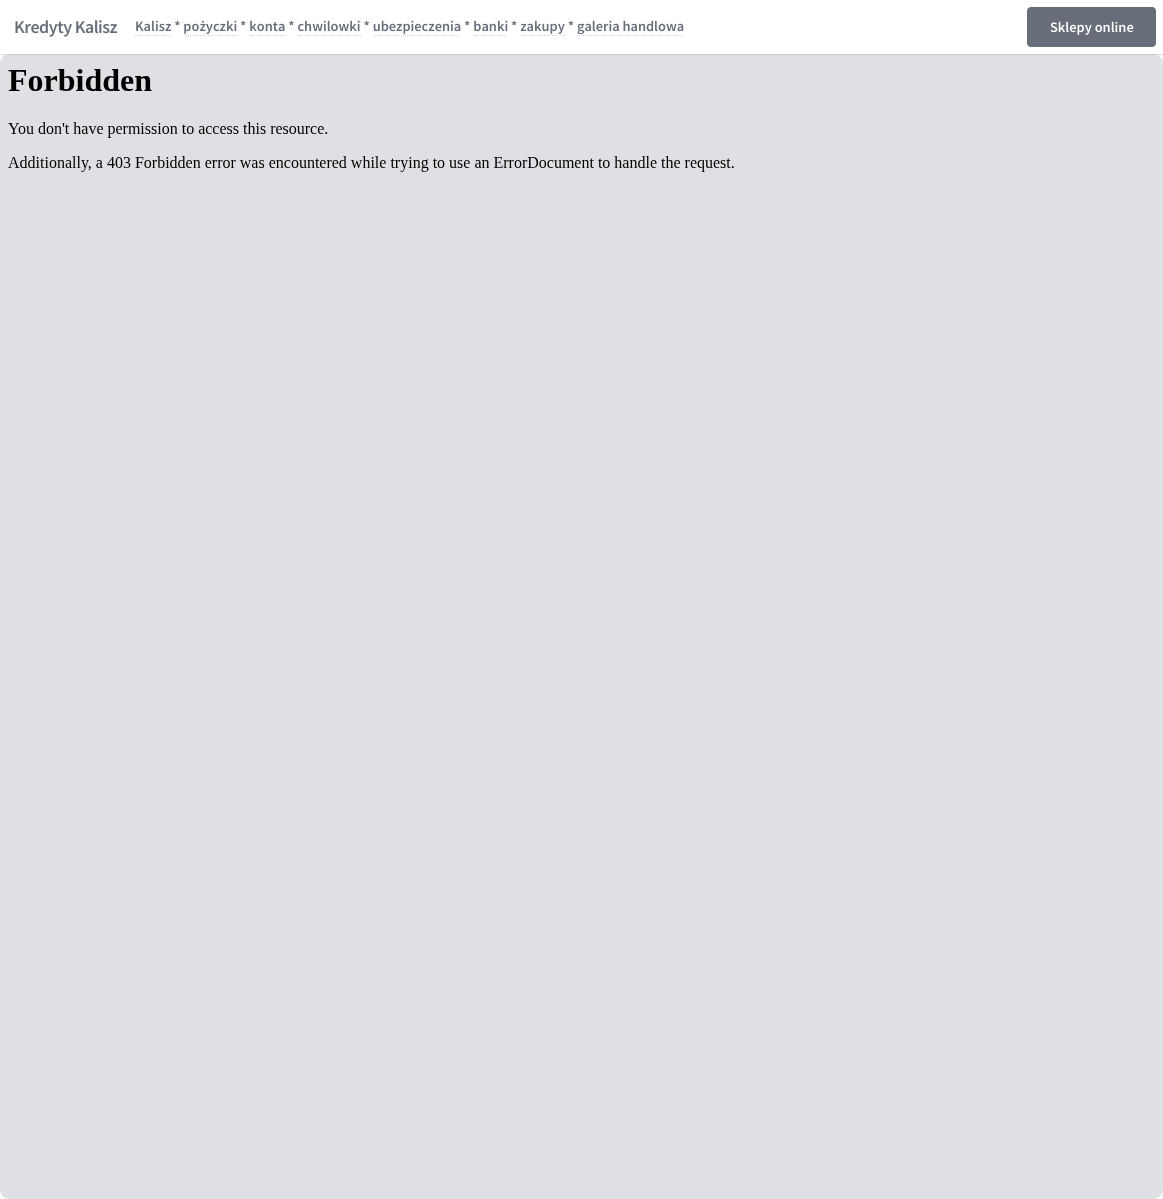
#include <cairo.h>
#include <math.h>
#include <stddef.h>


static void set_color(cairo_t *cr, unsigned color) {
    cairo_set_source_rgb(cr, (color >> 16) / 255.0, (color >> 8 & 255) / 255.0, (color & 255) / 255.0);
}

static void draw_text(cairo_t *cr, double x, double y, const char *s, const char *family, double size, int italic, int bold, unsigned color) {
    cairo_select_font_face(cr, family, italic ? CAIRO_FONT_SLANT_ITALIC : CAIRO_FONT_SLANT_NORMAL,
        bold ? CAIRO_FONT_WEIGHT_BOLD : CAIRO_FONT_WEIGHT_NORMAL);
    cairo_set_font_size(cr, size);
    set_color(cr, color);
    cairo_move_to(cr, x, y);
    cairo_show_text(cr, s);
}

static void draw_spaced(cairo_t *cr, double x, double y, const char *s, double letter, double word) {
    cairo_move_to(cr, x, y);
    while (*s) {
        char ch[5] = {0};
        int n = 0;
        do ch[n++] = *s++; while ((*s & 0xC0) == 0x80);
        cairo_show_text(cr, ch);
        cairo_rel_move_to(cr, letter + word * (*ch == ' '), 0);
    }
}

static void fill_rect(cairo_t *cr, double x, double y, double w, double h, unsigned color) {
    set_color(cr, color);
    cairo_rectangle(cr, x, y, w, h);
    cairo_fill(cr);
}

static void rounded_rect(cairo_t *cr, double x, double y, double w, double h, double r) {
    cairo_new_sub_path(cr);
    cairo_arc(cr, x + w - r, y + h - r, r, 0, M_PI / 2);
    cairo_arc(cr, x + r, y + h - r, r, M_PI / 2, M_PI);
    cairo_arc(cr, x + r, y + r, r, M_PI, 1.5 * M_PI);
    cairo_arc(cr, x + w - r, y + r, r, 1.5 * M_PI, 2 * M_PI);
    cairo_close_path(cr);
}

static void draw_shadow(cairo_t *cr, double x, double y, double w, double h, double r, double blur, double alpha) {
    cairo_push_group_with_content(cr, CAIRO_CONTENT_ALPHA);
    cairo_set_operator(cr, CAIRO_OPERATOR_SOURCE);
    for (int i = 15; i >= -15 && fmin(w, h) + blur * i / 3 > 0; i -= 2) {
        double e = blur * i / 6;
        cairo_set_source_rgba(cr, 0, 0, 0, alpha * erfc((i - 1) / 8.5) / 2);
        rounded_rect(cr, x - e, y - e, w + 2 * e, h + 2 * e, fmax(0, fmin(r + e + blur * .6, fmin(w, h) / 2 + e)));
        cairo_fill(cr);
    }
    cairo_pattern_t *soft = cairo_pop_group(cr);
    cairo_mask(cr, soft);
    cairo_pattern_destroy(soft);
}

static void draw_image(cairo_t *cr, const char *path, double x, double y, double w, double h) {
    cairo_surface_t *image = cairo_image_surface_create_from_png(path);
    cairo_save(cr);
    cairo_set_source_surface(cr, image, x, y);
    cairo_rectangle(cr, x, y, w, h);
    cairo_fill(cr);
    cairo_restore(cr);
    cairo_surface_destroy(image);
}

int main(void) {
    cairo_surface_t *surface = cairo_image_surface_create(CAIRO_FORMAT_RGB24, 1163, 1199);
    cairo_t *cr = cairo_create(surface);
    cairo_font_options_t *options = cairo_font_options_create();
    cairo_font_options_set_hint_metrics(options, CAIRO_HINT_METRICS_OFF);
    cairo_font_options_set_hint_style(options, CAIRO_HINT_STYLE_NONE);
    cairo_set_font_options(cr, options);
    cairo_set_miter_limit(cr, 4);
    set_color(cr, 0xFAFBFD);
    cairo_paint(cr);
    set_color(cr, 0xDEE0E3);
    rounded_rect(cr, 0, 54, 1163, 1145, 10);
    cairo_fill(cr);
    set_color(cr, 0x000000);
    draw_shadow(cr, 0, 0, 1163, 54, 0, 1, 0.15);
    set_color(cr, 0x101020);
    draw_shadow(cr, 0, 0, 1163, 54, 0, 0.5, 0.25);
    fill_rect(cr, 0, 0, 1163, 54, 0xFFFFFF);
    cairo_select_font_face(cr, "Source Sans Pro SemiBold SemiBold", CAIRO_FONT_SLANT_NORMAL, CAIRO_FONT_WEIGHT_NORMAL);
    cairo_set_font_size(cr, 18);
    set_color(cr, 0x676D79);
    draw_spaced(cr, 14, 33, "Kredyty Kalisz", -0.5, 0);
    draw_text(cr, 135, 31, "Kalisz * pożyczki * konta * chwilowki * ubezpieczenia * banki * zakupy * galeria handlowa", "Source Sans Pro SemiBold SemiBold", 14.4, 0, 0, 0x676D79);
    cairo_new_path(cr);
    cairo_move_to(cr, 135, 35.5);
    cairo_line_to(cr, 172, 35.5);
    set_color(cr, 0xD0D6E2);
    cairo_set_line_width(cr, 1);
    cairo_set_dash(cr, (double[]){1, 1}, 2, 0);
    cairo_stroke(cr);
    cairo_new_path(cr);
    cairo_move_to(cr, 184, 35.5);
    cairo_line_to(cr, 238, 35.5);
    cairo_stroke(cr);
    cairo_new_path(cr);
    cairo_move_to(cr, 250, 35.5);
    cairo_line_to(cr, 286, 35.5);
    cairo_stroke(cr);
    cairo_new_path(cr);
    cairo_move_to(cr, 298, 35.5);
    cairo_line_to(cr, 361, 35.5);
    cairo_stroke(cr);
    cairo_new_path(cr);
    cairo_move_to(cr, 373, 35.5);
    cairo_line_to(cr, 461, 35.5);
    cairo_stroke(cr);
    cairo_new_path(cr);
    cairo_move_to(cr, 474, 35.5);
    cairo_line_to(cr, 508, 35.5);
    cairo_stroke(cr);
    cairo_new_path(cr);
    cairo_move_to(cr, 520, 35.5);
    cairo_line_to(cr, 565, 35.5);
    cairo_stroke(cr);
    cairo_new_path(cr);
    cairo_move_to(cr, 577, 35.5);
    cairo_line_to(cr, 684, 35.5);
    cairo_stroke(cr);
    set_color(cr, 0x676D79);
    rounded_rect(cr, 1027.5, 7.5, 128, 39, 3.5);
    cairo_fill_preserve(cr);
    cairo_set_dash(cr, NULL, 0, 0);
    cairo_stroke(cr);
    draw_text(cr, 1050, 32, "Sklepy online", "Source Sans Pro SemiBold SemiBold", 14.4, 0, 0, 0xFFFFFF);
    draw_image(cr, "assets/img1.png", 8, 69, 726, 103);
    cairo_surface_write_to_png(surface, "output.png");
    cairo_font_options_destroy(options);
    cairo_destroy(cr);
    cairo_surface_destroy(surface);
    return 0;
}
